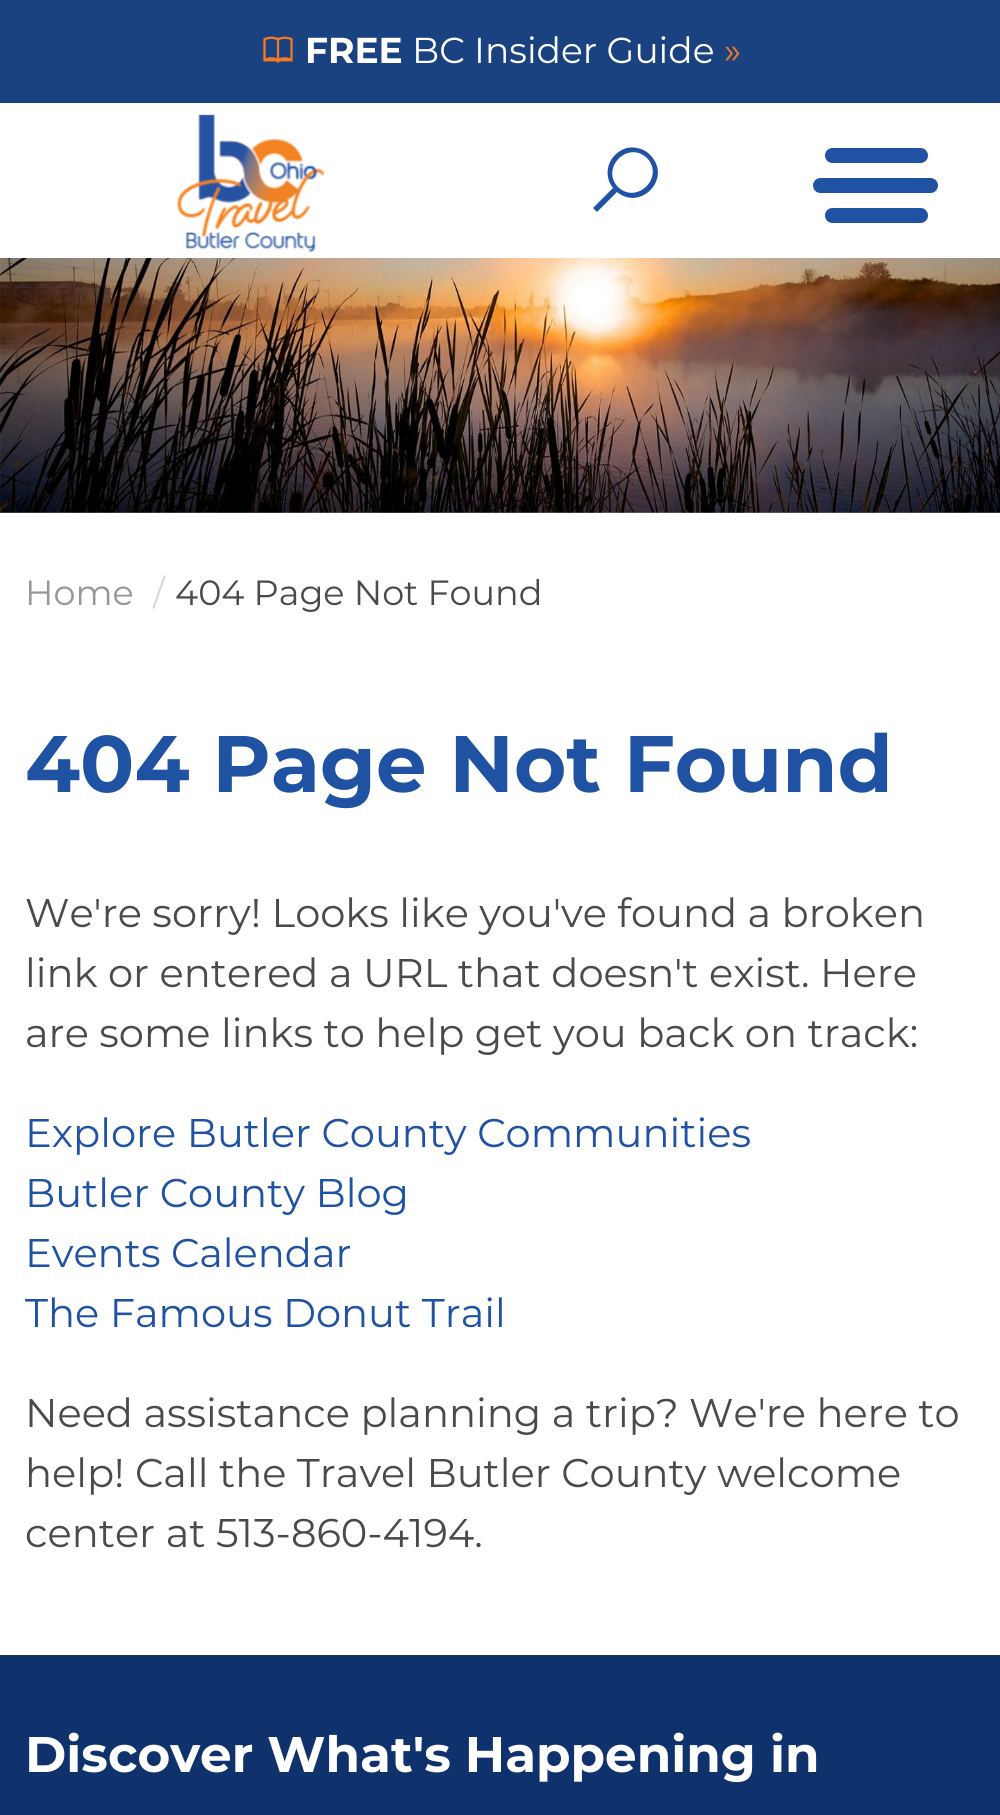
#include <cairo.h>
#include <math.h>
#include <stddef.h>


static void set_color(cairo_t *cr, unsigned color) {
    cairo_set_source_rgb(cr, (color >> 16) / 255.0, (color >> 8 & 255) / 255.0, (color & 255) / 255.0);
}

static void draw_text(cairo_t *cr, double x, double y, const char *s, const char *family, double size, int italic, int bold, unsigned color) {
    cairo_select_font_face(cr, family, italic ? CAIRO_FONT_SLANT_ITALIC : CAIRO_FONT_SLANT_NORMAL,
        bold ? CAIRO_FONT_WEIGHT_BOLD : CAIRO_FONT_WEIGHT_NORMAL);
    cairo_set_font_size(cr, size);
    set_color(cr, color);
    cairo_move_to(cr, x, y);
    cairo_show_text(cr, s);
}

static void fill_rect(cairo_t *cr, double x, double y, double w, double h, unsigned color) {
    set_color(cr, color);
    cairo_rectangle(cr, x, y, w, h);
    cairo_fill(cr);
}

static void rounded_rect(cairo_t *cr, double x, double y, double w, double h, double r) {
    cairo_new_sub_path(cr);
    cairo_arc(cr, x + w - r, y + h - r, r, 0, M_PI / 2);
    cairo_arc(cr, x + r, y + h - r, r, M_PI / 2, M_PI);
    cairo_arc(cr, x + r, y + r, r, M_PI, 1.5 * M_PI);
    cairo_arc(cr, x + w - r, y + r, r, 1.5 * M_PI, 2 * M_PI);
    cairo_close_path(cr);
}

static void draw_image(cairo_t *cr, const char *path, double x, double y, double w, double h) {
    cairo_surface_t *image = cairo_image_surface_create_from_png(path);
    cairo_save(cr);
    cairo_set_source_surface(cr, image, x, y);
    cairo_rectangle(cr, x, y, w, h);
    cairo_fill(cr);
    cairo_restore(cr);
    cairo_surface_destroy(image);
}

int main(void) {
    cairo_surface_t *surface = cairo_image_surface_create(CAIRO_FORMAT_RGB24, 1000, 1815);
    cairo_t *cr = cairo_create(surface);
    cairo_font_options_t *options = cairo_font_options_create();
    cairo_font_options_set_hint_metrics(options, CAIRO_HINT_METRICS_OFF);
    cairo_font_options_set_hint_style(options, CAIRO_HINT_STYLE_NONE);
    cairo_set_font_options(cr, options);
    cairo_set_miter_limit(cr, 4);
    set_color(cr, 0xFFFFFF);
    cairo_paint(cr);
    fill_rect(cr, 0, 0, 1000, 103, 0x1A4280);
    draw_image(cr, "assets/img1.png", 263, 36, 30, 27);
    draw_text(cr, 305, 63, "FREE", "Montserrat", 36, 0, 1, 0xFFFFFF);
    draw_text(cr, 412, 63, "BC Insider Guide", "Montserrat", 36, 0, 0, 0xFFFFFF);
    draw_text(cr, 724, 63, "»", "Montserrat", 36, 0, 0, 0xF37A20);
    draw_image(cr, "assets/img2.png", 176, 114, 149, 139);
    set_color(cr, 0x2052A3);
    cairo_new_path(cr);
    cairo_move_to(cr, 615, 155);
    cairo_curve_to(cr, 621, 149, 629, 146, 637, 148);
    cairo_curve_to(cr, 643, 149, 648, 152, 652, 157);
    cairo_curve_to(cr, 671, 180, 640, 211, 617, 192);
    cairo_line_to(cr, 597, 212);
    cairo_line_to(cr, 593, 208);
    cairo_line_to(cr, 613, 188);
    cairo_curve_to(cr, 605, 178, 606, 164, 615, 155);
    cairo_close_path(cr);
    cairo_move_to(cr, 647, 158);
    cairo_curve_to(cr, 628, 140, 600, 168, 618, 187);
    cairo_curve_to(cr, 637, 205, 665, 177, 647, 158);
    cairo_close_path(cr);
    cairo_fill(cr);
    rounded_rect(cr, 825, 148, 103, 15, 7.5);
    cairo_fill(cr);
    rounded_rect(cr, 813, 178, 125, 15, 7.5);
    cairo_fill(cr);
    rounded_rect(cr, 825, 208, 103, 15, 7.5);
    cairo_fill(cr);
    draw_image(cr, "assets/img3.png", 0, 258, 1000, 255);
    draw_text(cr, 25, 605, "Home", "Montserrat", 35, 0, 0, 0x979797);
    draw_text(cr, 153, 605, "/", "Montserrat", 35, 0, 0, 0xD8D8D8);
    draw_text(cr, 175, 605, "404 Page Not Found", "Montserrat", 35, 0, 0, 0x4A4A4A);
    draw_text(cr, 25, 792, "404 Page Not Found", "Montserrat", 80, 0, 1, 0x2052A3);
    draw_text(cr, 25, 927, "We're sorry! Looks like you've found a broken", "Montserrat", 40, 0, 0, 0x4A4A4A);
    draw_text(cr, 25, 987, "link or entered a URL that doesn't exist. Here", "Montserrat", 40, 0, 0, 0x4A4A4A);
    draw_text(cr, 25, 1047, "are some links to help get you back on track:", "Montserrat", 40, 0, 0, 0x4A4A4A);
    draw_text(cr, 25, 1147, "Explore Butler County Communities", "Montserrat", 40, 0, 0, 0x2052A3);
    draw_text(cr, 25, 1207, "Butler County Blog", "Montserrat", 40, 0, 0, 0x2052A3);
    draw_text(cr, 25, 1267, "Events Calendar", "Montserrat", 40, 0, 0, 0x2052A3);
    draw_text(cr, 25, 1327, "The Famous Donut Trail", "Montserrat", 40, 0, 0, 0x2052A3);
    draw_text(cr, 25, 1427, "Need assistance planning a trip? We're here to", "Montserrat", 40, 0, 0, 0x4A4A4A);
    draw_text(cr, 25, 1487, "help! Call the Travel Butler County welcome", "Montserrat", 40, 0, 0, 0x4A4A4A);
    draw_text(cr, 25, 1547, "center at 513-860-4194.", "Montserrat", 40, 0, 0, 0x4A4A4A);
    fill_rect(cr, 0, 1655, 1000, 160, 0x0F326C);
    draw_text(cr, 25, 1772, "Discover What's Happening in", "Montserrat", 50, 0, 1, 0xFFFFFF);
    cairo_surface_write_to_png(surface, "output.png");
    cairo_font_options_destroy(options);
    cairo_destroy(cr);
    cairo_surface_destroy(surface);
    return 0;
}
